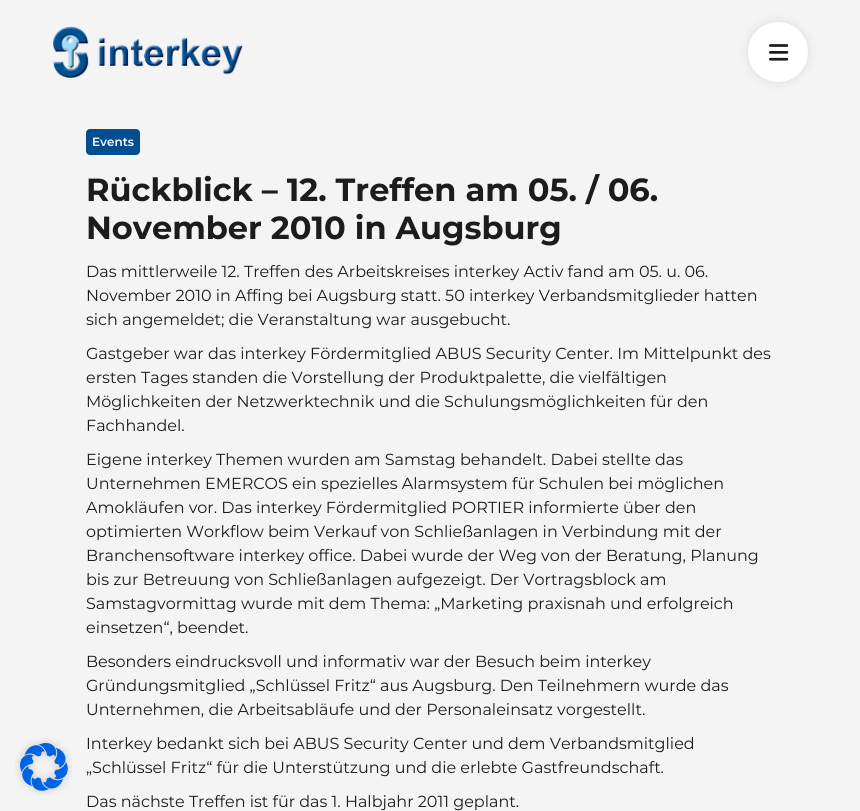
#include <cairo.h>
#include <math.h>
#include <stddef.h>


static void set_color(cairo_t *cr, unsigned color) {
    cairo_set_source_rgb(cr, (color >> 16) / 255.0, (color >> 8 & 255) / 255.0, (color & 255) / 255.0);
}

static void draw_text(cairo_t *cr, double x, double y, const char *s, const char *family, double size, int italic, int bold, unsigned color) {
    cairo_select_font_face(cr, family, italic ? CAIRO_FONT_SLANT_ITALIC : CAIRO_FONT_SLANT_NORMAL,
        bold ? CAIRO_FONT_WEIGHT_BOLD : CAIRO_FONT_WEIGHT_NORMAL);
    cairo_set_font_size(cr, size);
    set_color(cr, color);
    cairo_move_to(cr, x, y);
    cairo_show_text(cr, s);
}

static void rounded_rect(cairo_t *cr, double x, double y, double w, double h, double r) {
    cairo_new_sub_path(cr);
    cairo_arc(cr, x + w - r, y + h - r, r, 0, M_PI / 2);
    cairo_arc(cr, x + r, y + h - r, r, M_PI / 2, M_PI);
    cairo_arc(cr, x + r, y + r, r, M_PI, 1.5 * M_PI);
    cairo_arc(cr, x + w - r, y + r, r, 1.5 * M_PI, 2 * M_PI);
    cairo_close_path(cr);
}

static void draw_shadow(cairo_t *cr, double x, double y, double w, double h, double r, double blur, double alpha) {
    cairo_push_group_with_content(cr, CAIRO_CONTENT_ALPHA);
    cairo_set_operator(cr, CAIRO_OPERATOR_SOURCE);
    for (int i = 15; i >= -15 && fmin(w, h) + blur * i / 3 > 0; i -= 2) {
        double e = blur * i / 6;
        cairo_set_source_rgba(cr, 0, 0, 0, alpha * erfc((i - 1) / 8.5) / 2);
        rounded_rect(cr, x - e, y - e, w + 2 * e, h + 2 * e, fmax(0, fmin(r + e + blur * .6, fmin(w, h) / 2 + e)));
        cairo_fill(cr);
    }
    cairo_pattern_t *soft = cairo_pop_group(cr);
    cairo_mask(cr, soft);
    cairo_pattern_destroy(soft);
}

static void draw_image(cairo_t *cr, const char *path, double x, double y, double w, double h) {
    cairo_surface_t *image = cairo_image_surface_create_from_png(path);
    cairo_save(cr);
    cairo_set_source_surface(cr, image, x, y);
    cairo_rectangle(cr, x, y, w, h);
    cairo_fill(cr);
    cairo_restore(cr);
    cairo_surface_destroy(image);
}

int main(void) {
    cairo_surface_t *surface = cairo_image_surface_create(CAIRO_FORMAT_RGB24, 860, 811);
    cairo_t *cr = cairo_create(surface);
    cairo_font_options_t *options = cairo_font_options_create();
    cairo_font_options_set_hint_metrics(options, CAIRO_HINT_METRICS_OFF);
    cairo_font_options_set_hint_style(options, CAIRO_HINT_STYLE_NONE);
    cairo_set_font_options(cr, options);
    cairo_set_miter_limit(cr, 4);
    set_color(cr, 0xF4F4F4);
    cairo_paint(cr);
    draw_image(cr, "assets/img1.png", 15, 738, 57, 57);
    draw_image(cr, "assets/img2.png", 53, 26, 190, 52);
    set_color(cr, 0x000000);
    draw_shadow(cr, 748, 22, 60, 60, 30, 5, 0.1);
    set_color(cr, 0xFFFFFF);
    cairo_arc(cr, 778, 52, 30, 0, 2 * M_PI);
    cairo_fill(cr);
    draw_image(cr, "assets/img3.png", 769, 44, 20, 17);
    set_color(cr, 0x004D91);
    rounded_rect(cr, 86, 129, 54, 26, 4);
    cairo_fill(cr);
    draw_text(cr, 92, 146, "Events", "Montserrat SemiBold", 12, 0, 0, 0xFFFFFF);
    draw_text(cr, 86, 201, "Rückblick – 12. Treffen am 05. / 06.", "Montserrat", 32, 0, 1, 0x1C1C1C);
    draw_text(cr, 86, 239, "November 2010 in Augsburg", "Montserrat", 32, 0, 1, 0x1C1C1C);
    draw_text(cr, 86, 277, "Das mittlerweile 12. Treffen des Arbeitskreises interkey Activ fand am 05. u. 06.", "Montserrat", 16, 0, 0, 0x1C1C1C);
    draw_text(cr, 86, 301, "November 2010 in Affing bei Augsburg statt. 50 interkey Verbandsmitglieder hatten", "Montserrat", 16, 0, 0, 0x1C1C1C);
    draw_text(cr, 86, 325, "sich angemeldet; die Veranstaltung war ausgebucht.", "Montserrat", 16, 0, 0, 0x1C1C1C);
    draw_text(cr, 86, 359, "Gastgeber war das interkey Fördermitglied ABUS Security Center. Im Mittelpunkt des", "Montserrat", 16, 0, 0, 0x1C1C1C);
    draw_text(cr, 86, 383, "ersten Tages standen die Vorstellung der Produktpalette, die vielfältigen", "Montserrat", 16, 0, 0, 0x1C1C1C);
    draw_text(cr, 86, 407, "Möglichkeiten der Netzwerktechnik und die Schulungsmöglichkeiten für den", "Montserrat", 16, 0, 0, 0x1C1C1C);
    draw_text(cr, 86, 431, "Fachhandel.", "Montserrat", 16, 0, 0, 0x1C1C1C);
    draw_text(cr, 86, 465, "Eigene interkey Themen wurden am Samstag behandelt. Dabei stellte das", "Montserrat", 16, 0, 0, 0x1C1C1C);
    draw_text(cr, 86, 489, "Unternehmen EMERCOS ein spezielles Alarmsystem für Schulen bei möglichen", "Montserrat", 16, 0, 0, 0x1C1C1C);
    draw_text(cr, 86, 513, "Amokläufen vor. Das interkey Fördermitglied PORTIER informierte über den", "Montserrat", 16, 0, 0, 0x1C1C1C);
    draw_text(cr, 86, 537, "optimierten Workflow beim Verkauf von Schließanlagen in Verbindung mit der", "Montserrat", 16, 0, 0, 0x1C1C1C);
    draw_text(cr, 86, 561, "Branchensoftware interkey office. Dabei wurde der Weg von der Beratung, Planung", "Montserrat", 16, 0, 0, 0x1C1C1C);
    draw_text(cr, 86, 585, "bis zur Betreuung von Schließanlagen aufgezeigt. Der Vortragsblock am", "Montserrat", 16, 0, 0, 0x1C1C1C);
    draw_text(cr, 86, 609, "Samstagvormittag wurde mit dem Thema: „Marketing praxisnah und erfolgreich", "Montserrat", 16, 0, 0, 0x1C1C1C);
    draw_text(cr, 86, 633, "einsetzen“, beendet.", "Montserrat", 16, 0, 0, 0x1C1C1C);
    draw_text(cr, 86, 667, "Besonders eindrucksvoll und informativ war der Besuch beim interkey", "Montserrat", 16, 0, 0, 0x1C1C1C);
    draw_text(cr, 86, 691, "Gründungsmitglied „Schlüssel Fritz“ aus Augsburg. Den Teilnehmern wurde das", "Montserrat", 16, 0, 0, 0x1C1C1C);
    draw_text(cr, 86, 715, "Unternehmen, die Arbeitsabläufe und der Personaleinsatz vorgestellt.", "Montserrat", 16, 0, 0, 0x1C1C1C);
    draw_text(cr, 86, 749, "Interkey bedankt sich bei ABUS Security Center und dem Verbandsmitglied", "Montserrat", 16, 0, 0, 0x1C1C1C);
    draw_text(cr, 86, 773, "„Schlüssel Fritz“ für die Unterstützung und die erlebte Gastfreundschaft.", "Montserrat", 16, 0, 0, 0x1C1C1C);
    draw_text(cr, 86, 807, "Das nächste Treffen ist für das 1. Halbjahr 2011 geplant.", "Montserrat", 16, 0, 0, 0x1C1C1C);
    cairo_surface_write_to_png(surface, "output.png");
    cairo_font_options_destroy(options);
    cairo_destroy(cr);
    cairo_surface_destroy(surface);
    return 0;
}
